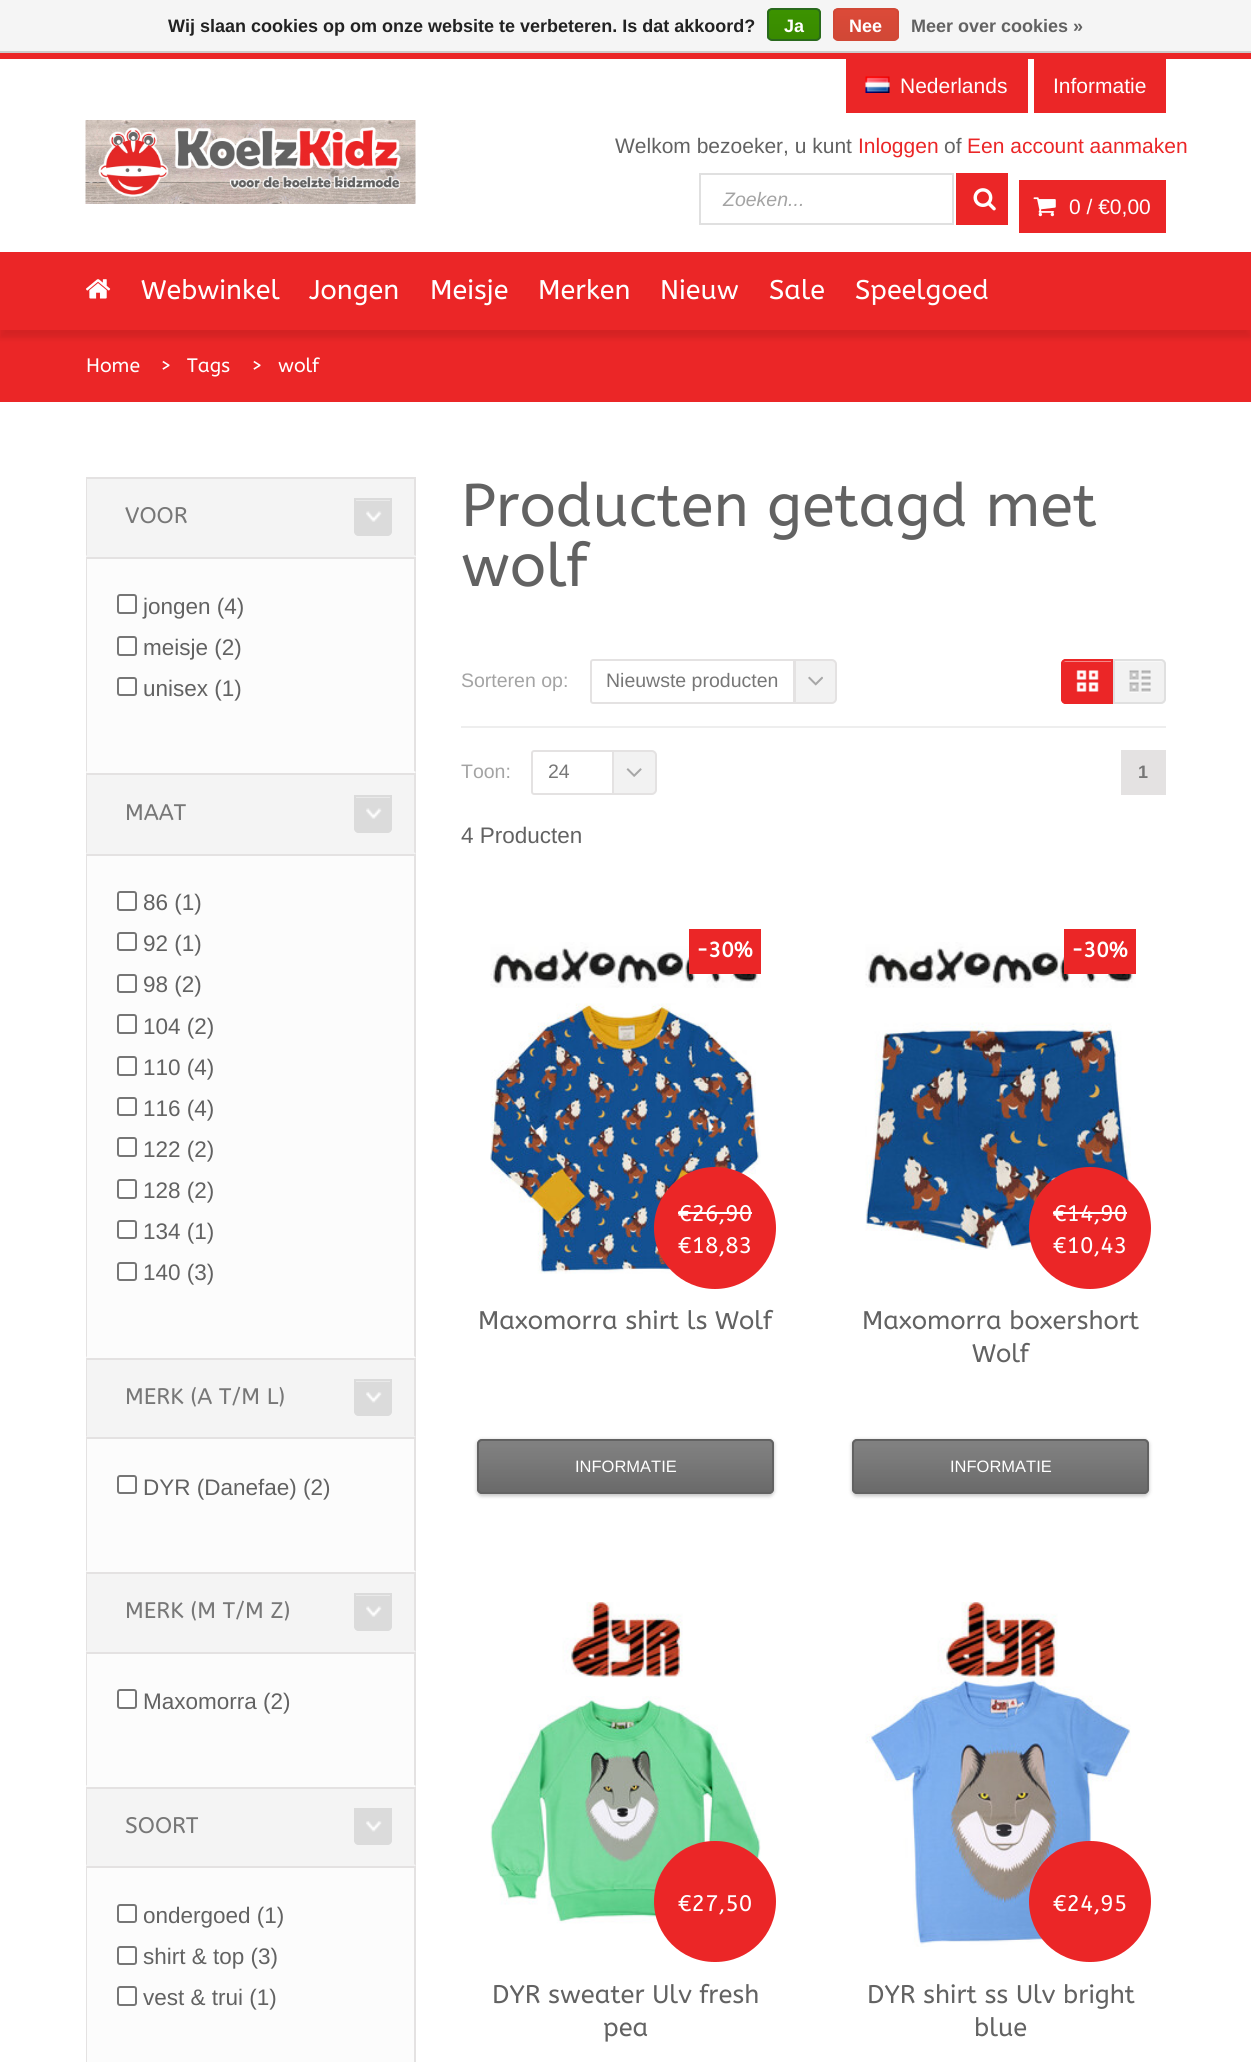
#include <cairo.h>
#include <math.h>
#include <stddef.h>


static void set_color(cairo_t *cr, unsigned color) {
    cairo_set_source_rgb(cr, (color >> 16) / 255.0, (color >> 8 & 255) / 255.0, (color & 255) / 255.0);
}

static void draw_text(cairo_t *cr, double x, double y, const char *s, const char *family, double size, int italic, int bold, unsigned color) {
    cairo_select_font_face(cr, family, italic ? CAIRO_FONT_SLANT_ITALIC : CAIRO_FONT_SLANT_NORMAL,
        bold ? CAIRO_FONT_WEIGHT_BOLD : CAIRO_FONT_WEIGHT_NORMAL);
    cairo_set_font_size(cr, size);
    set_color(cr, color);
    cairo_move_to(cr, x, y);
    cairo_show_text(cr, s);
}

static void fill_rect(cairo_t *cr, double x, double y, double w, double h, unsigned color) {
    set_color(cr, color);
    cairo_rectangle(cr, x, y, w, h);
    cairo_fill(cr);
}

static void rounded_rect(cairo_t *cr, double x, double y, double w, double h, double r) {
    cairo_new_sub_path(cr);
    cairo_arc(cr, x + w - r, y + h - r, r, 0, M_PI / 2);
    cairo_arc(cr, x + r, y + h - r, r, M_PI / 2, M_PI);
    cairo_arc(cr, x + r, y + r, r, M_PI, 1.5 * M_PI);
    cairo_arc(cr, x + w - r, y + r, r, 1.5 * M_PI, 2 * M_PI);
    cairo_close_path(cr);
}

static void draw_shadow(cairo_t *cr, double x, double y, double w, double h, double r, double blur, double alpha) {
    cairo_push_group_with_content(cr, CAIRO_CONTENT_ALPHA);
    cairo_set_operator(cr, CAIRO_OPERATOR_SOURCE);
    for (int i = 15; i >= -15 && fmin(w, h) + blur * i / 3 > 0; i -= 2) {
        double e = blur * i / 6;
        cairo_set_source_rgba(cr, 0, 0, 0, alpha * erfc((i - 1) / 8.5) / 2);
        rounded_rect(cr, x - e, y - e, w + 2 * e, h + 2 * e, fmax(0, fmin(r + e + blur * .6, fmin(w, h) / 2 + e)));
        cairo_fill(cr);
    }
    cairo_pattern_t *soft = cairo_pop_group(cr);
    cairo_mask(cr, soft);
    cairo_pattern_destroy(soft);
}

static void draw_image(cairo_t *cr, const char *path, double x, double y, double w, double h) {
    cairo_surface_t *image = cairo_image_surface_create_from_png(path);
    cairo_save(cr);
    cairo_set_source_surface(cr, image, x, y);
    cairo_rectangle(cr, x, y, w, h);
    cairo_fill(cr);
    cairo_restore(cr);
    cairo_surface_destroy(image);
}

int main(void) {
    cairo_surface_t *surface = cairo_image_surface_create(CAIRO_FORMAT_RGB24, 1251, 2062);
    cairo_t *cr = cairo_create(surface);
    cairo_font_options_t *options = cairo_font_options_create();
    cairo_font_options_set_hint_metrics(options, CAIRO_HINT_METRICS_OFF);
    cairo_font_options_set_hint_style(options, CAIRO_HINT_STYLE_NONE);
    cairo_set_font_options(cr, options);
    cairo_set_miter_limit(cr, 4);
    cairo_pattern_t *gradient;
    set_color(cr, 0xFFFFFF);
    cairo_paint(cr);
    fill_rect(cr, 0, 0, 1251, 51, 0xF5F5F5);
    fill_rect(cr, 0, 51, 1251, 2, 0xCCCCCC);
    draw_text(cr, 168, 32, "Wij slaan cookies op om onze website te verbeteren. Is dat akkoord?", "Liberation Sans", 18, 0, 1, 0x222222);
    cairo_save(cr);
    rounded_rect(cr, 767, 8, 54, 33, 5);
    cairo_clip(cr);
    gradient = cairo_pattern_create_linear(794, 9, 794, 39);
    cairo_pattern_add_color_stop_rgba(gradient, 0, 0.235, 0.576, 0, 1);
    cairo_pattern_add_color_stop_rgba(gradient, 1, 0.224, 0.541, 0, 1);
    cairo_set_source(cr, gradient);
    cairo_pattern_destroy(gradient);
    cairo_rectangle(cr, 767, 9, 54, 30);
    cairo_fill(cr);
    cairo_restore(cr);
    rounded_rect(cr, 768, 9, 52, 31, 4);
    set_color(cr, 0x29691D);
    cairo_stroke(cr);
    draw_text(cr, 784, 32, "Ja", "Liberation Sans", 18, 0, 1, 0xFFFFFF);
    cairo_save(cr);
    rounded_rect(cr, 833, 8, 66, 33, 5);
    cairo_clip(cr);
    gradient = cairo_pattern_create_linear(866, 9, 866, 39);
    cairo_pattern_add_color_stop_rgba(gradient, 0, 0.863, 0.29, 0.22, 1);
    cairo_pattern_add_color_stop_rgba(gradient, 1, 0.82, 0.282, 0.212, 1);
    cairo_set_source(cr, gradient);
    cairo_pattern_destroy(gradient);
    cairo_rectangle(cr, 833, 9, 66, 30);
    cairo_fill(cr);
    cairo_restore(cr);
    rounded_rect(cr, 834, 9, 64, 31, 4);
    set_color(cr, 0xD14836);
    cairo_stroke(cr);
    draw_text(cr, 849, 32, "Nee", "Liberation Sans", 18, 0, 1, 0xFFFFFF);
    draw_text(cr, 911, 32, "Meer over cookies »", "Liberation Sans", 18, 0, 1, 0x626262);
    fill_rect(cr, 0, 53, 1251, 6, 0xEB2627);
    fill_rect(cr, 846, 59, 182, 54, 0xEB2627);
    draw_image(cr, "assets/img1.png", 865, 76, 25, 17);
    draw_text(cr, 900, 93, "Nederlands", "Liberation Sans", 21, 0, 0, 0xFFFFFF);
    fill_rect(cr, 1034, 59, 132, 54, 0xEB2627);
    draw_text(cr, 1053, 93, "Informatie", "Liberation Sans", 21, 0, 0, 0xFFFFFF);
    draw_text(cr, 615, 153, "Welkom bezoeker, u kunt", "Liberation Sans", 21, 0, 0, 0x626262);
    draw_text(cr, 858, 153, "Inloggen", "Liberation Sans", 21, 0, 0, 0xEB2627);
    draw_text(cr, 944, 153, "of", "Liberation Sans", 21, 0, 0, 0x626262);
    draw_text(cr, 967, 153, "Een account aanmaken", "Liberation Sans", 21, 0, 0, 0xEB2627);
    fill_rect(cr, 0, 330, 1251, 72, 0xEB2627);
    set_color(cr, 0x000000);
    draw_shadow(cr, 0, 260, 1251, 78, 0, 3, 0.1);
    fill_rect(cr, 0, 252, 1251, 78, 0xEB2627);
    cairo_rectangle(cr, 700, 174, 253, 50);
    set_color(cr, 0xE0E0E0);
    cairo_stroke(cr);
    draw_text(cr, 723, 206, "Zoeken...", "Liberation Sans", 19.5, 1, 0, 0xA4A4A4);
    fill_rect(cr, 956, 173, 52, 52, 0xEB2627);
    draw_image(cr, "assets/img2.png", 973, 188, 23, 23);
    draw_image(cr, "assets/img3.png", 86, 279, 25, 20);
    draw_text(cr, 141, 299, "Webwinkel", "ABeeZee", 27, 0, 0, 0xFFFFFF);
    draw_text(cr, 309, 299, "Jongen", "ABeeZee", 27, 0, 0, 0xFFFFFF);
    draw_text(cr, 430, 299, "Meisje", "ABeeZee", 27, 0, 0, 0xFFFFFF);
    draw_text(cr, 538, 299, "Merken", "ABeeZee", 27, 0, 0, 0xFFFFFF);
    draw_text(cr, 660, 299, "Nieuw", "ABeeZee", 27, 0, 0, 0xFFFFFF);
    draw_text(cr, 769, 299, "Sale", "ABeeZee", 27, 0, 0, 0xFFFFFF);
    draw_text(cr, 855, 299, "Speelgoed", "ABeeZee", 27, 0, 0, 0xFFFFFF);
    draw_image(cr, "assets/img4.png", 85, 120, 331, 84);
    fill_rect(cr, 1019, 180, 147, 53, 0xEB2627);
    draw_image(cr, "assets/img5.png", 1033, 197, 23, 20);
    draw_text(cr, 1069, 214, "0 / €0,00", "Liberation Sans", 21, 0, 0, 0xFFFFFF);
    draw_text(cr, 86, 372, "Home", "ABeeZee", 19.5, 0, 0, 0xFFFFFF);
    draw_text(cr, 160, 372, ">", "ABeeZee", 19.5, 0, 0, 0xFFFFFF);
    draw_text(cr, 187, 372, "Tags", "ABeeZee", 19.5, 0, 0, 0xFFFFFF);
    draw_text(cr, 251, 372, ">", "ABeeZee", 19.5, 0, 0, 0xFFFFFF);
    draw_text(cr, 278, 372, "wolf", "ABeeZee", 19.5, 0, 0, 0xFFFFFF);
    fill_rect(cr, 86, 559, 330, 214, 0xFCFCFC);
    fill_rect(cr, 86, 557, 330, 2, 0xE4E2E2);
    cairo_new_path(cr);
    cairo_move_to(cr, 416, 556);
    cairo_line_to(cr, 416, 772);
    cairo_line_to(cr, 414, 771);
    cairo_line_to(cr, 414, 558);
    cairo_close_path(cr);
    cairo_fill(cr);
    cairo_new_path(cr);
    cairo_move_to(cr, 86, 772);
    cairo_line_to(cr, 86, 556);
    cairo_line_to(cr, 87, 558);
    cairo_line_to(cr, 87, 771);
    cairo_close_path(cr);
    cairo_fill(cr);
    fill_rect(cr, 86, 479, 330, 78, 0xF4F4F4);
    fill_rect(cr, 86, 477, 330, 2, 0xE4E2E2);
    cairo_new_path(cr);
    cairo_move_to(cr, 416, 477);
    cairo_line_to(cr, 416, 556);
    cairo_line_to(cr, 414, 555);
    cairo_line_to(cr, 414, 478);
    cairo_close_path(cr);
    cairo_fill(cr);
    cairo_new_path(cr);
    cairo_move_to(cr, 86, 556);
    cairo_line_to(cr, 86, 477);
    cairo_line_to(cr, 87, 478);
    cairo_line_to(cr, 87, 555);
    cairo_close_path(cr);
    cairo_fill(cr);
    draw_text(cr, 125, 523, "VOOR", "ABeeZee", 22.5, 0, 0, 0x777777);
    set_color(cr, 0xDBDBDB);
    cairo_new_path(cr);
    cairo_move_to(cr, 354, 498);
    cairo_line_to(cr, 392, 498);
    cairo_line_to(cr, 392, 531);
    cairo_curve_to(cr, 392, 534, 390, 536, 387, 536);
    cairo_line_to(cr, 359, 536);
    cairo_curve_to(cr, 356, 536, 354, 534, 354, 531);
    cairo_close_path(cr);
    cairo_fill(cr);
    draw_image(cr, "assets/img6.png", 366, 511, 16, 11);
    fill_rect(cr, 356, 500, 34, 1, 0xE9E9E9);
    cairo_new_path(cr);
    cairo_move_to(cr, 355, 499);
    cairo_line_to(cr, 391, 499);
    cairo_line_to(cr, 391, 531);
    cairo_curve_to(cr, 391, 533, 389, 535, 387, 535);
    cairo_line_to(cr, 359, 535);
    cairo_curve_to(cr, 357, 535, 355, 533, 355, 531);
    cairo_close_path(cr);
    set_color(cr, 0xDBDBDB);
    cairo_stroke(cr);
    set_color(cr, 0xFFFFFF);
    rounded_rect(cr, 118, 595, 18, 18, 2);
    cairo_fill_preserve(cr);
    set_color(cr, 0x767676);
    cairo_stroke(cr);
    draw_text(cr, 143, 614, "jongen (4)", "Liberation Sans", 22.5, 0, 0, 0x626262);
    set_color(cr, 0xFFFFFF);
    rounded_rect(cr, 118, 637, 18, 18, 2);
    cairo_fill_preserve(cr);
    set_color(cr, 0x767676);
    cairo_stroke(cr);
    draw_text(cr, 143, 655, "meisje (2)", "Liberation Sans", 22.5, 0, 0, 0x626262);
    set_color(cr, 0xFFFFFF);
    rounded_rect(cr, 118, 678, 18, 17, 2);
    cairo_fill_preserve(cr);
    set_color(cr, 0x767676);
    cairo_stroke(cr);
    draw_text(cr, 143, 696, "unisex (1)", "Liberation Sans", 22.5, 0, 0, 0x626262);
    fill_rect(cr, 86, 775, 330, 79, 0xF4F4F4);
    fill_rect(cr, 86, 773, 330, 2, 0xE4E2E2);
    cairo_new_path(cr);
    cairo_move_to(cr, 416, 772);
    cairo_line_to(cr, 416, 854);
    cairo_line_to(cr, 414, 852);
    cairo_line_to(cr, 414, 774);
    cairo_close_path(cr);
    cairo_fill(cr);
    cairo_new_path(cr);
    cairo_move_to(cr, 86, 854);
    cairo_line_to(cr, 86, 772);
    cairo_line_to(cr, 87, 774);
    cairo_line_to(cr, 87, 852);
    cairo_close_path(cr);
    cairo_fill(cr);
    draw_text(cr, 125, 820, "MAAT", "ABeeZee", 22.5, 0, 0, 0x777777);
    set_color(cr, 0xDBDBDB);
    cairo_new_path(cr);
    cairo_move_to(cr, 354, 795);
    cairo_line_to(cr, 392, 795);
    cairo_line_to(cr, 392, 828);
    cairo_curve_to(cr, 392, 831, 390, 833, 387, 833);
    cairo_line_to(cr, 359, 833);
    cairo_curve_to(cr, 356, 833, 354, 831, 354, 828);
    cairo_close_path(cr);
    cairo_fill(cr);
    draw_image(cr, "assets/img6.png", 366, 808, 16, 11);
    fill_rect(cr, 356, 797, 34, 1, 0xE9E9E9);
    cairo_new_path(cr);
    cairo_move_to(cr, 355, 796);
    cairo_line_to(cr, 391, 796);
    cairo_line_to(cr, 391, 828);
    cairo_curve_to(cr, 391, 830, 389, 832, 387, 832);
    cairo_line_to(cr, 359, 832);
    cairo_curve_to(cr, 357, 832, 355, 830, 355, 828);
    cairo_close_path(cr);
    set_color(cr, 0xDBDBDB);
    cairo_stroke(cr);
    fill_rect(cr, 86, 856, 330, 502, 0xFCFCFC);
    fill_rect(cr, 86, 854, 330, 2, 0xE4E2E2);
    cairo_new_path(cr);
    cairo_move_to(cr, 416, 854);
    cairo_line_to(cr, 416, 1358);
    cairo_line_to(cr, 414, 1356);
    cairo_line_to(cr, 414, 855);
    cairo_close_path(cr);
    cairo_fill(cr);
    cairo_new_path(cr);
    cairo_move_to(cr, 86, 1358);
    cairo_line_to(cr, 86, 854);
    cairo_line_to(cr, 87, 855);
    cairo_line_to(cr, 87, 1356);
    cairo_close_path(cr);
    cairo_fill(cr);
    set_color(cr, 0xFFFFFF);
    rounded_rect(cr, 118, 892, 18, 18, 2);
    cairo_fill_preserve(cr);
    set_color(cr, 0x767676);
    cairo_stroke(cr);
    draw_text(cr, 143, 910, "86 (1)", "Liberation Sans", 22.5, 0, 0, 0x626262);
    set_color(cr, 0xFFFFFF);
    rounded_rect(cr, 118, 933, 18, 17, 2);
    cairo_fill_preserve(cr);
    set_color(cr, 0x767676);
    cairo_stroke(cr);
    draw_text(cr, 143, 951, "92 (1)", "Liberation Sans", 22.5, 0, 0, 0x626262);
    set_color(cr, 0xFFFFFF);
    rounded_rect(cr, 118, 975, 18, 17, 2);
    cairo_fill_preserve(cr);
    set_color(cr, 0x767676);
    cairo_stroke(cr);
    draw_text(cr, 143, 992, "98 (2)", "Liberation Sans", 22.5, 0, 0, 0x626262);
    set_color(cr, 0xFFFFFF);
    rounded_rect(cr, 118, 1015, 18, 18, 2);
    cairo_fill_preserve(cr);
    set_color(cr, 0x767676);
    cairo_stroke(cr);
    draw_text(cr, 143, 1034, "104 (2)", "Liberation Sans", 22.5, 0, 0, 0x626262);
    set_color(cr, 0xFFFFFF);
    rounded_rect(cr, 118, 1057, 18, 18, 2);
    cairo_fill_preserve(cr);
    set_color(cr, 0x767676);
    cairo_stroke(cr);
    draw_text(cr, 143, 1075, "110 (4)", "Liberation Sans", 22.5, 0, 0, 0x626262);
    set_color(cr, 0xFFFFFF);
    rounded_rect(cr, 118, 1098, 18, 17, 2);
    cairo_fill_preserve(cr);
    set_color(cr, 0x767676);
    cairo_stroke(cr);
    draw_text(cr, 143, 1116, "116 (4)", "Liberation Sans", 22.5, 0, 0, 0x626262);
    set_color(cr, 0xFFFFFF);
    rounded_rect(cr, 118, 1138, 18, 18, 2);
    cairo_fill_preserve(cr);
    set_color(cr, 0x767676);
    cairo_stroke(cr);
    draw_text(cr, 143, 1157, "122 (2)", "Liberation Sans", 22.5, 0, 0, 0x626262);
    set_color(cr, 0xFFFFFF);
    rounded_rect(cr, 118, 1180, 18, 18, 2);
    cairo_fill_preserve(cr);
    set_color(cr, 0x767676);
    cairo_stroke(cr);
    draw_text(cr, 143, 1198, "128 (2)", "Liberation Sans", 22.5, 0, 0, 0x626262);
    set_color(cr, 0xFFFFFF);
    rounded_rect(cr, 118, 1221, 18, 17, 2);
    cairo_fill_preserve(cr);
    set_color(cr, 0x767676);
    cairo_stroke(cr);
    draw_text(cr, 143, 1239, "134 (1)", "Liberation Sans", 22.5, 0, 0, 0x626262);
    set_color(cr, 0xFFFFFF);
    rounded_rect(cr, 118, 1263, 18, 17, 2);
    cairo_fill_preserve(cr);
    set_color(cr, 0x767676);
    cairo_stroke(cr);
    draw_text(cr, 143, 1280, "140 (3)", "Liberation Sans", 22.5, 0, 0, 0x626262);
    fill_rect(cr, 86, 1360, 330, 77, 0xF4F4F4);
    fill_rect(cr, 86, 1358, 330, 2, 0xE4E2E2);
    cairo_new_path(cr);
    cairo_move_to(cr, 416, 1358);
    cairo_line_to(cr, 416, 1437);
    cairo_line_to(cr, 414, 1436);
    cairo_line_to(cr, 414, 1359);
    cairo_close_path(cr);
    cairo_fill(cr);
    cairo_new_path(cr);
    cairo_move_to(cr, 86, 1437);
    cairo_line_to(cr, 86, 1358);
    cairo_line_to(cr, 87, 1359);
    cairo_line_to(cr, 87, 1436);
    cairo_close_path(cr);
    cairo_fill(cr);
    draw_text(cr, 125, 1404, "MERK (A T/M L)", "ABeeZee", 22.5, 0, 0, 0x777777);
    set_color(cr, 0xDBDBDB);
    cairo_new_path(cr);
    cairo_move_to(cr, 354, 1379);
    cairo_line_to(cr, 392, 1379);
    cairo_line_to(cr, 392, 1411);
    cairo_curve_to(cr, 392, 1414, 390, 1416, 387, 1416);
    cairo_line_to(cr, 359, 1416);
    cairo_curve_to(cr, 356, 1416, 354, 1414, 354, 1411);
    cairo_close_path(cr);
    cairo_fill(cr);
    draw_image(cr, "assets/img7.png", 366, 1392, 16, 11);
    fill_rect(cr, 356, 1381, 34, 1, 0xE9E9E9);
    cairo_new_path(cr);
    cairo_move_to(cr, 355, 1380);
    cairo_line_to(cr, 391, 1380);
    cairo_line_to(cr, 391, 1411);
    cairo_curve_to(cr, 391, 1413, 389, 1415, 387, 1415);
    cairo_line_to(cr, 359, 1415);
    cairo_curve_to(cr, 357, 1415, 355, 1413, 355, 1411);
    cairo_close_path(cr);
    set_color(cr, 0xDBDBDB);
    cairo_stroke(cr);
    fill_rect(cr, 86, 1439, 330, 133, 0xFCFCFC);
    fill_rect(cr, 86, 1437, 330, 2, 0xE4E2E2);
    cairo_new_path(cr);
    cairo_move_to(cr, 416, 1437);
    cairo_line_to(cr, 416, 1572);
    cairo_line_to(cr, 414, 1570);
    cairo_line_to(cr, 414, 1438);
    cairo_close_path(cr);
    cairo_fill(cr);
    cairo_new_path(cr);
    cairo_move_to(cr, 86, 1572);
    cairo_line_to(cr, 86, 1437);
    cairo_line_to(cr, 87, 1438);
    cairo_line_to(cr, 87, 1570);
    cairo_close_path(cr);
    cairo_fill(cr);
    set_color(cr, 0xFFFFFF);
    rounded_rect(cr, 118, 1476, 18, 17, 2);
    cairo_fill_preserve(cr);
    set_color(cr, 0x767676);
    cairo_stroke(cr);
    draw_text(cr, 143, 1495, "DYR (Danefae) (2)", "Liberation Sans", 22.5, 0, 0, 0x626262);
    fill_rect(cr, 86, 1574, 330, 78, 0xF4F4F4);
    fill_rect(cr, 86, 1572, 330, 2, 0xE4E2E2);
    cairo_new_path(cr);
    cairo_move_to(cr, 416, 1572);
    cairo_line_to(cr, 416, 1652);
    cairo_line_to(cr, 414, 1650);
    cairo_line_to(cr, 414, 1574);
    cairo_close_path(cr);
    cairo_fill(cr);
    cairo_new_path(cr);
    cairo_move_to(cr, 86, 1652);
    cairo_line_to(cr, 86, 1572);
    cairo_line_to(cr, 87, 1574);
    cairo_line_to(cr, 87, 1650);
    cairo_close_path(cr);
    cairo_fill(cr);
    draw_text(cr, 125, 1618, "MERK (M T/M Z)", "ABeeZee", 22.5, 0, 0, 0x777777);
    set_color(cr, 0xDBDBDB);
    cairo_new_path(cr);
    cairo_move_to(cr, 354, 1593);
    cairo_line_to(cr, 392, 1593);
    cairo_line_to(cr, 392, 1626);
    cairo_curve_to(cr, 392, 1629, 390, 1631, 387, 1631);
    cairo_line_to(cr, 359, 1631);
    cairo_curve_to(cr, 356, 1631, 354, 1629, 354, 1626);
    cairo_close_path(cr);
    cairo_fill(cr);
    draw_image(cr, "assets/img6.png", 366, 1606, 16, 11);
    fill_rect(cr, 356, 1595, 34, 1, 0xE9E9E9);
    cairo_new_path(cr);
    cairo_move_to(cr, 355, 1594);
    cairo_line_to(cr, 391, 1594);
    cairo_line_to(cr, 391, 1626);
    cairo_curve_to(cr, 391, 1628, 389, 1630, 387, 1630);
    cairo_line_to(cr, 359, 1630);
    cairo_curve_to(cr, 357, 1630, 355, 1628, 355, 1626);
    cairo_close_path(cr);
    set_color(cr, 0xDBDBDB);
    cairo_stroke(cr);
    fill_rect(cr, 86, 1654, 330, 133, 0xFCFCFC);
    fill_rect(cr, 86, 1652, 330, 2, 0xE4E2E2);
    cairo_new_path(cr);
    cairo_move_to(cr, 416, 1652);
    cairo_line_to(cr, 416, 1786);
    cairo_line_to(cr, 414, 1785);
    cairo_line_to(cr, 414, 1653);
    cairo_close_path(cr);
    cairo_fill(cr);
    cairo_new_path(cr);
    cairo_move_to(cr, 86, 1786);
    cairo_line_to(cr, 86, 1652);
    cairo_line_to(cr, 87, 1653);
    cairo_line_to(cr, 87, 1785);
    cairo_close_path(cr);
    cairo_fill(cr);
    set_color(cr, 0xFFFFFF);
    rounded_rect(cr, 118, 1690, 18, 18, 2);
    cairo_fill_preserve(cr);
    set_color(cr, 0x767676);
    cairo_stroke(cr);
    draw_text(cr, 143, 1709, "Maxomorra (2)", "Liberation Sans", 22.5, 0, 0, 0x626262);
    fill_rect(cr, 86, 1789, 330, 77, 0xF4F4F4);
    fill_rect(cr, 86, 1787, 330, 2, 0xE4E2E2);
    cairo_new_path(cr);
    cairo_move_to(cr, 416, 1786);
    cairo_line_to(cr, 416, 1866);
    cairo_line_to(cr, 414, 1864);
    cairo_line_to(cr, 414, 1788);
    cairo_close_path(cr);
    cairo_fill(cr);
    cairo_new_path(cr);
    cairo_move_to(cr, 86, 1866);
    cairo_line_to(cr, 86, 1786);
    cairo_line_to(cr, 87, 1788);
    cairo_line_to(cr, 87, 1864);
    cairo_close_path(cr);
    cairo_fill(cr);
    draw_text(cr, 125, 1833, "SOORT", "ABeeZee", 22.5, 0, 0, 0x777777);
    set_color(cr, 0xDBDBDB);
    cairo_new_path(cr);
    cairo_move_to(cr, 354, 1808);
    cairo_line_to(cr, 392, 1808);
    cairo_line_to(cr, 392, 1840);
    cairo_curve_to(cr, 392, 1843, 390, 1845, 387, 1845);
    cairo_line_to(cr, 359, 1845);
    cairo_curve_to(cr, 356, 1845, 354, 1843, 354, 1840);
    cairo_close_path(cr);
    cairo_fill(cr);
    draw_image(cr, "assets/img7.png", 366, 1821, 16, 11);
    cairo_new_path(cr);
    cairo_move_to(cr, 355, 1809);
    cairo_line_to(cr, 391, 1809);
    cairo_line_to(cr, 391, 1840);
    cairo_curve_to(cr, 391, 1842, 389, 1844, 387, 1844);
    cairo_line_to(cr, 359, 1844);
    cairo_curve_to(cr, 357, 1844, 355, 1842, 355, 1840);
    cairo_close_path(cr);
    cairo_stroke(cr);
    fill_rect(cr, 87, 1868, 327, 194, 0xFCFCFC);
    fill_rect(cr, 86, 1866, 330, 2, 0xE4E2E2);
    cairo_new_path(cr);
    cairo_move_to(cr, 416, 1866);
    cairo_line_to(cr, 416, 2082);
    cairo_line_to(cr, 414, 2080);
    cairo_line_to(cr, 414, 1868);
    cairo_close_path(cr);
    cairo_fill(cr);
    cairo_new_path(cr);
    cairo_move_to(cr, 86, 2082);
    cairo_line_to(cr, 86, 1866);
    cairo_line_to(cr, 87, 1868);
    cairo_line_to(cr, 87, 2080);
    cairo_close_path(cr);
    cairo_fill(cr);
    set_color(cr, 0xFFFFFF);
    rounded_rect(cr, 118, 1905, 18, 17, 2);
    cairo_fill_preserve(cr);
    set_color(cr, 0x767676);
    cairo_stroke(cr);
    draw_text(cr, 143, 1923, "ondergoed (1)", "Liberation Sans", 22.5, 0, 0, 0x626262);
    set_color(cr, 0xFFFFFF);
    rounded_rect(cr, 118, 1947, 18, 17, 2);
    cairo_fill_preserve(cr);
    set_color(cr, 0x767676);
    cairo_stroke(cr);
    draw_text(cr, 143, 1964, "shirt & top (3)", "Liberation Sans", 22.5, 0, 0, 0x626262);
    set_color(cr, 0xFFFFFF);
    rounded_rect(cr, 118, 1987, 18, 18, 2);
    cairo_fill_preserve(cr);
    set_color(cr, 0x767676);
    cairo_stroke(cr);
    draw_text(cr, 143, 2005, "vest & trui (1)", "Liberation Sans", 22.5, 0, 0, 0x626262);
    draw_text(cr, 461, 526, "Producten getagd met", "ABeeZee", 60, 0, 0, 0x626262);
    draw_text(cr, 461, 586, "wolf", "ABeeZee", 60, 0, 0, 0x626262);
    draw_text(cr, 461, 687, "Sorteren op:", "Liberation Sans", 19.5, 0, 0, 0xA4A4A4);
    cairo_new_path(cr);
    cairo_move_to(cr, 593, 660);
    cairo_line_to(cr, 794, 660);
    cairo_line_to(cr, 794, 703);
    cairo_line_to(cr, 593, 703);
    cairo_curve_to(cr, 592, 703, 591, 702, 591, 701);
    cairo_line_to(cr, 591, 662);
    cairo_curve_to(cr, 591, 661, 592, 660, 593, 660);
    cairo_close_path(cr);
    set_color(cr, 0xE4E2E2);
    cairo_stroke(cr);
    draw_text(cr, 606, 687, "Nieuwste producten", "Liberation Sans", 19.5, 0, 0, 0x777777);
    set_color(cr, 0xF2F2F2);
    cairo_new_path(cr);
    cairo_move_to(cr, 795, 660);
    cairo_line_to(cr, 832, 660);
    cairo_curve_to(cr, 834, 660, 836, 662, 836, 664);
    cairo_line_to(cr, 836, 699);
    cairo_curve_to(cr, 836, 701, 834, 703, 832, 703);
    cairo_line_to(cr, 795, 703);
    cairo_close_path(cr);
    cairo_fill_preserve(cr);
    set_color(cr, 0xE4E2E2);
    cairo_stroke(cr);
    draw_image(cr, "assets/img8.png", 808, 676, 15, 10);
    set_color(cr, 0xEB2627);
    cairo_new_path(cr);
    cairo_move_to(cr, 1066, 659);
    cairo_line_to(cr, 1113, 659);
    cairo_line_to(cr, 1113, 704);
    cairo_line_to(cr, 1066, 704);
    cairo_curve_to(cr, 1063, 704, 1061, 702, 1061, 699);
    cairo_line_to(cr, 1061, 664);
    cairo_curve_to(cr, 1061, 661, 1063, 659, 1066, 659);
    cairo_close_path(cr);
    cairo_fill(cr);
    draw_image(cr, "assets/img9.png", 1076, 670, 23, 22);
    set_color(cr, 0xF48888);
    cairo_new_path(cr);
    cairo_move_to(cr, 1065, 662);
    cairo_line_to(cr, 1112, 662);
    cairo_line_to(cr, 1112, 660);
    cairo_line_to(cr, 1065, 660);
    cairo_curve_to(cr, 1063, 660, 1062, 661, 1062, 663);
    cairo_line_to(cr, 1062, 664);
    cairo_curve_to(cr, 1062, 663, 1063, 662, 1065, 662);
    cairo_close_path(cr);
    cairo_fill(cr);
    cairo_new_path(cr);
    cairo_move_to(cr, 1066, 660);
    cairo_line_to(cr, 1112, 660);
    cairo_line_to(cr, 1112, 703);
    cairo_line_to(cr, 1066, 703);
    cairo_curve_to(cr, 1064, 703, 1062, 701, 1062, 699);
    cairo_line_to(cr, 1062, 664);
    cairo_curve_to(cr, 1062, 662, 1064, 660, 1066, 660);
    cairo_close_path(cr);
    set_color(cr, 0xEB2627);
    cairo_stroke(cr);
    set_color(cr, 0xF2F2F2);
    cairo_new_path(cr);
    cairo_move_to(cr, 1113, 659);
    cairo_line_to(cr, 1161, 659);
    cairo_curve_to(cr, 1164, 659, 1166, 661, 1166, 664);
    cairo_line_to(cr, 1166, 699);
    cairo_curve_to(cr, 1166, 702, 1164, 704, 1161, 704);
    cairo_line_to(cr, 1113, 704);
    cairo_close_path(cr);
    cairo_fill(cr);
    draw_image(cr, "assets/img10.png", 1129, 670, 22, 23);
    set_color(cr, 0xF8F8F8);
    cairo_new_path(cr);
    cairo_move_to(cr, 1115, 660);
    cairo_line_to(cr, 1115, 662);
    cairo_line_to(cr, 1161, 662);
    cairo_curve_to(cr, 1163, 662, 1164, 663, 1164, 664);
    cairo_curve_to(cr, 1164, 662, 1163, 660, 1161, 660);
    cairo_close_path(cr);
    cairo_fill(cr);
    cairo_new_path(cr);
    cairo_move_to(cr, 1114, 660);
    cairo_line_to(cr, 1161, 660);
    cairo_curve_to(cr, 1163, 660, 1165, 662, 1165, 664);
    cairo_line_to(cr, 1165, 699);
    cairo_curve_to(cr, 1165, 701, 1163, 703, 1161, 703);
    cairo_line_to(cr, 1114, 703);
    cairo_close_path(cr);
    set_color(cr, 0xE0E0E0);
    cairo_stroke(cr);
    fill_rect(cr, 461, 726, 705, 2, 0xEEEEEE);
    draw_text(cr, 461, 778, "Toon:", "Liberation Sans", 19.5, 0, 0, 0xA4A4A4);
    cairo_new_path(cr);
    cairo_move_to(cr, 534, 751);
    cairo_line_to(cr, 613, 751);
    cairo_line_to(cr, 613, 794);
    cairo_line_to(cr, 534, 794);
    cairo_curve_to(cr, 533, 794, 532, 793, 532, 792);
    cairo_line_to(cr, 532, 753);
    cairo_curve_to(cr, 532, 752, 533, 751, 534, 751);
    cairo_close_path(cr);
    set_color(cr, 0xE4E2E2);
    cairo_stroke(cr);
    draw_text(cr, 548, 778, "24", "Liberation Sans", 19.5, 0, 0, 0x777777);
    set_color(cr, 0xF2F2F2);
    cairo_new_path(cr);
    cairo_move_to(cr, 613, 751);
    cairo_line_to(cr, 652, 751);
    cairo_curve_to(cr, 654, 751, 656, 753, 656, 755);
    cairo_line_to(cr, 656, 790);
    cairo_curve_to(cr, 656, 792, 654, 794, 652, 794);
    cairo_line_to(cr, 613, 794);
    cairo_close_path(cr);
    cairo_fill_preserve(cr);
    set_color(cr, 0xE4E2E2);
    cairo_stroke(cr);
    draw_image(cr, "assets/img11.png", 626, 768, 16, 9);
    fill_rect(cr, 1121, 750, 45, 45, 0xE4E2E2);
    draw_text(cr, 1138, 778, "1", "Liberation Sans", 18, 0, 1, 0x777777);
    draw_text(cr, 461, 843, "4 Producten", "Liberation Sans", 22.5, 0, 0, 0x626262);
    draw_image(cr, "assets/img12.png", 490, 942, 271, 46);
    fill_rect(cr, 689, 929, 72, 45, 0xEB2627);
    draw_text(cr, 696, 957, "-30%", "ABeeZee", 21, 0, 1, 0xFFFFFF);
    draw_image(cr, "assets/img13.png", 490, 1003, 271, 271);
    set_color(cr, 0xEB2627);
    cairo_arc(cr, 715, 1228, 61, 0, 2 * M_PI);
    cairo_fill(cr);
    draw_text(cr, 678, 1221, "€26,90", "ABeeZee", 22.5, 0, 0, 0xFFFFFF);
    fill_rect(cr, 678, 1212, 74, 2, 0xFFFFFF);
    draw_text(cr, 678, 1253, "€18,83", "ABeeZee", 22.5, 0, 0, 0xFFFFFF);
    draw_text(cr, 478, 1329, "Maxomorra shirt ls Wolf", "ABeeZee", 25.5, 0, 0, 0x626262);
    set_color(cr, 0x000000);
    draw_shadow(cr, 477, 1440, 297, 56, 5, 2, 0.25);
    set_color(cr, 0x626262);
    rounded_rect(cr, 477, 1439, 297, 55, 5);
    cairo_fill(cr);
    draw_image(cr, "assets/img14.png", 477, 1439, 297, 55);
    rounded_rect(cr, 478, 1440, 295, 53, 4);
    cairo_stroke(cr);
    draw_text(cr, 575, 1472, "INFORMATIE", "Liberation Sans", 16.5, 0, 0, 0xFFFFFF);
    draw_image(cr, "assets/img15.png", 865, 942, 271, 46);
    fill_rect(cr, 1064, 929, 72, 45, 0xEB2627);
    draw_text(cr, 1071, 957, "-30%", "ABeeZee", 21, 0, 1, 0xFFFFFF);
    draw_image(cr, "assets/img16.png", 865, 1022, 271, 228);
    set_color(cr, 0xEB2627);
    cairo_arc(cr, 1090, 1228, 61, 0, 2 * M_PI);
    cairo_fill(cr);
    draw_text(cr, 1053, 1221, "€14,90", "ABeeZee", 22.5, 0, 0, 0xFFFFFF);
    fill_rect(cr, 1053, 1212, 74, 2, 0xFFFFFF);
    draw_text(cr, 1053, 1253, "€10,43", "ABeeZee", 22.5, 0, 0, 0xFFFFFF);
    draw_text(cr, 862, 1329, "Maxomorra boxershort", "ABeeZee", 25.5, 0, 0, 0x626262);
    draw_text(cr, 972, 1362, "Wolf", "ABeeZee", 25.5, 0, 0, 0x626262);
    set_color(cr, 0x000000);
    draw_shadow(cr, 852, 1440, 297, 56, 5, 2, 0.25);
    set_color(cr, 0x626262);
    rounded_rect(cr, 852, 1439, 297, 55, 5);
    cairo_fill(cr);
    draw_image(cr, "assets/img14.png", 852, 1439, 297, 55);
    rounded_rect(cr, 853, 1440, 295, 53, 4);
    cairo_stroke(cr);
    draw_text(cr, 950, 1472, "INFORMATIE", "Liberation Sans", 16.5, 0, 0, 0xFFFFFF);
    draw_image(cr, "assets/img17.png", 562, 1602, 121, 75);
    draw_image(cr, "assets/img18.png", 490, 1696, 271, 228);
    set_color(cr, 0xEB2627);
    rounded_rect(cr, 654, 1841, 122, 121, 60.5);
    cairo_fill(cr);
    draw_text(cr, 678, 1911, "€27,50", "ABeeZee", 22.5, 0, 0, 0xFFFFFF);
    draw_text(cr, 492, 2003, "DYR sweater Ulv fresh", "ABeeZee", 25.5, 0, 0, 0x626262);
    draw_text(cr, 603, 2036, "pea", "ABeeZee", 25.5, 0, 0, 0x626262);
    draw_image(cr, "assets/img19.png", 937, 1602, 121, 75);
    draw_image(cr, "assets/img20.png", 865, 1677, 266, 270);
    set_color(cr, 0xEB2627);
    rounded_rect(cr, 1029, 1841, 122, 121, 60.5);
    cairo_fill(cr);
    draw_text(cr, 1053, 1911, "€24,95", "ABeeZee", 22.5, 0, 0, 0xFFFFFF);
    draw_text(cr, 867, 2003, "DYR shirt ss Ulv bright", "ABeeZee", 25.5, 0, 0, 0x626262);
    draw_text(cr, 974, 2036, "blue", "ABeeZee", 25.5, 0, 0, 0x626262);
    cairo_surface_write_to_png(surface, "output.png");
    cairo_font_options_destroy(options);
    cairo_destroy(cr);
    cairo_surface_destroy(surface);
    return 0;
}
